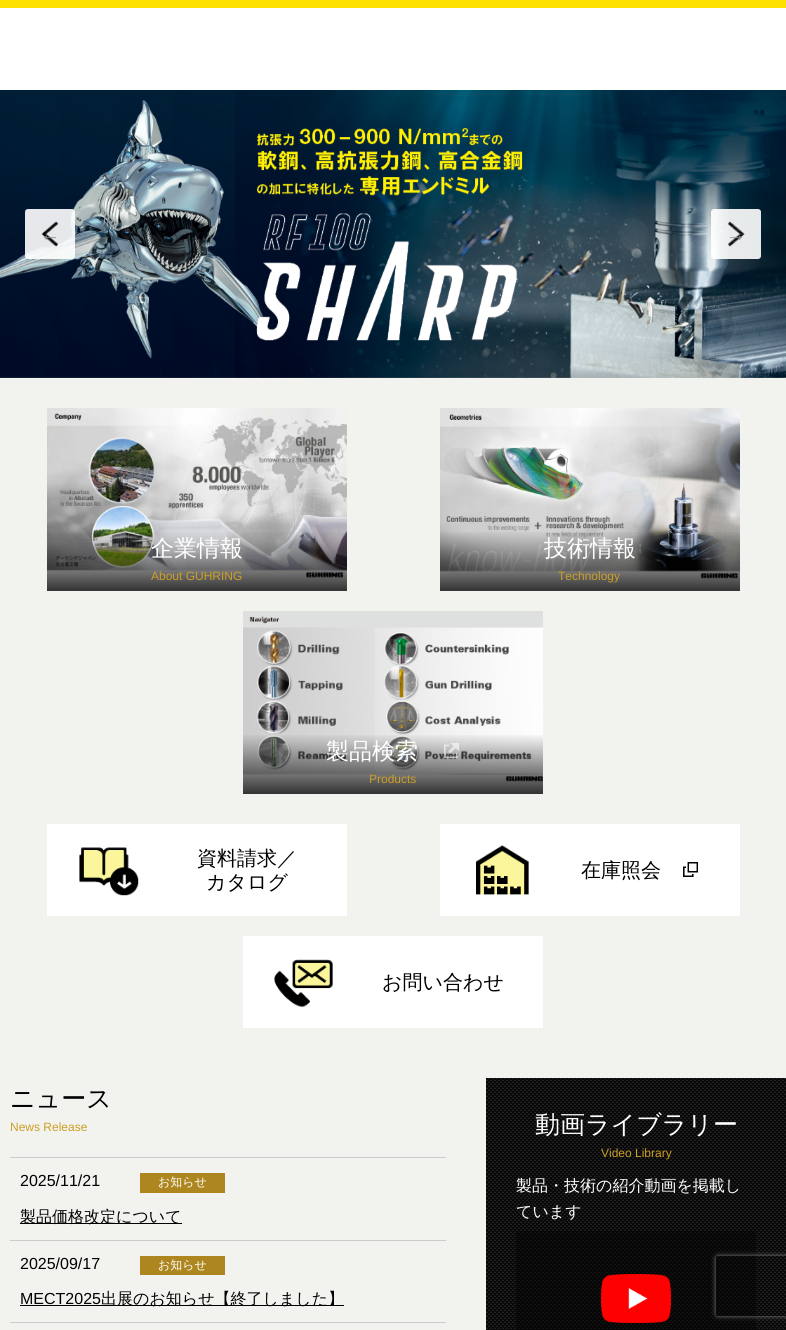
#include <cairo.h>
#include <math.h>
#include <stddef.h>


static void set_color(cairo_t *cr, unsigned color) {
    cairo_set_source_rgb(cr, (color >> 16) / 255.0, (color >> 8 & 255) / 255.0, (color & 255) / 255.0);
}

static void draw_text(cairo_t *cr, double x, double y, const char *s, const char *family, double size, int italic, int bold, unsigned color) {
    cairo_select_font_face(cr, family, italic ? CAIRO_FONT_SLANT_ITALIC : CAIRO_FONT_SLANT_NORMAL,
        bold ? CAIRO_FONT_WEIGHT_BOLD : CAIRO_FONT_WEIGHT_NORMAL);
    cairo_set_font_size(cr, size);
    set_color(cr, color);
    cairo_move_to(cr, x, y);
    cairo_show_text(cr, s);
}

static void fill_rect(cairo_t *cr, double x, double y, double w, double h, unsigned color) {
    set_color(cr, color);
    cairo_rectangle(cr, x, y, w, h);
    cairo_fill(cr);
}

static void rounded_rect(cairo_t *cr, double x, double y, double w, double h, double r) {
    cairo_new_sub_path(cr);
    cairo_arc(cr, x + w - r, y + h - r, r, 0, M_PI / 2);
    cairo_arc(cr, x + r, y + h - r, r, M_PI / 2, M_PI);
    cairo_arc(cr, x + r, y + r, r, M_PI, 1.5 * M_PI);
    cairo_arc(cr, x + w - r, y + r, r, 1.5 * M_PI, 2 * M_PI);
    cairo_close_path(cr);
}

static void draw_shadow(cairo_t *cr, double x, double y, double w, double h, double r, double blur, double alpha) {
    cairo_push_group_with_content(cr, CAIRO_CONTENT_ALPHA);
    cairo_set_operator(cr, CAIRO_OPERATOR_SOURCE);
    for (int i = 15; i >= -15 && fmin(w, h) + blur * i / 3 > 0; i -= 2) {
        double e = blur * i / 6;
        cairo_set_source_rgba(cr, 0, 0, 0, alpha * erfc((i - 1) / 8.5) / 2);
        rounded_rect(cr, x - e, y - e, w + 2 * e, h + 2 * e, fmax(0, fmin(r + e + blur * .6, fmin(w, h) / 2 + e)));
        cairo_fill(cr);
    }
    cairo_pattern_t *soft = cairo_pop_group(cr);
    cairo_mask(cr, soft);
    cairo_pattern_destroy(soft);
}

static void draw_image(cairo_t *cr, const char *path, double x, double y, double w, double h) {
    cairo_surface_t *image = cairo_image_surface_create_from_png(path);
    cairo_save(cr);
    cairo_set_source_surface(cr, image, x, y);
    cairo_rectangle(cr, x, y, w, h);
    cairo_fill(cr);
    cairo_restore(cr);
    cairo_surface_destroy(image);
}

int main(void) {
    cairo_surface_t *surface = cairo_image_surface_create(CAIRO_FORMAT_RGB24, 786, 1330);
    cairo_t *cr = cairo_create(surface);
    cairo_font_options_t *options = cairo_font_options_create();
    cairo_font_options_set_hint_metrics(options, CAIRO_HINT_METRICS_OFF);
    cairo_font_options_set_hint_style(options, CAIRO_HINT_STYLE_NONE);
    cairo_set_font_options(cr, options);
    cairo_set_miter_limit(cr, 4);
    cairo_pattern_t *gradient;
    set_color(cr, 0xFFFFFF);
    cairo_paint(cr);
    fill_rect(cr, 0, 0, 786, 8, 0xFFE100);
    draw_image(cr, "assets/img1.png", 0, 90, 786, 288);
    cairo_set_source_rgba(cr, 1, 1, 1, 0.9);
    rounded_rect(cr, 25, 209, 50, 50, 3);
    cairo_fill(cr);
    draw_image(cr, "assets/img2.png", 41, 221, 18, 26);
    draw_text(cr, 40, 241, "←", "Liberation Serif", 20, 0, 0, 0x8C8E8F);
    cairo_set_source_rgba(cr, 1, 1, 1, 0.9);
    rounded_rect(cr, 711, 209, 50, 50, 3);
    cairo_fill(cr);
    draw_image(cr, "assets/img3.png", 728, 221, 17, 26);
    draw_text(cr, 726, 241, "→", "Liberation Serif", 20, 0, 0, 0x8C8E8F);
    fill_rect(cr, 0, 378, 786, 952, 0xF2F2EE);
    fill_rect(cr, 47, 578, 300, 13, 0xFFFFFF);
    draw_image(cr, "assets/img4.png", 47, 408, 300, 170);
    gradient = cairo_pattern_create_linear(197, 530, 197, 591);
    cairo_pattern_add_color_stop_rgba(gradient, 0, 0, 0, 0, 0);
    cairo_pattern_add_color_stop_rgba(gradient, 1, 0, 0, 0, 0.8);
    cairo_set_source(cr, gradient);
    cairo_pattern_destroy(gradient);
    cairo_rectangle(cr, 47, 532, 300, 59);
    cairo_fill(cr);
    draw_text(cr, 151, 556, "企業情報", "WenQuanYi Zen Hei Medium", 23, 0, 0, 0xFFFFFF);
    draw_text(cr, 151, 580, "About GUHRING", "Liberation Sans", 12, 0, 0, 0xCC9E24);
    fill_rect(cr, 440, 579, 300, 12, 0xFFFFFF);
    draw_image(cr, "assets/img5.png", 440, 408, 300, 171);
    gradient = cairo_pattern_create_linear(590, 530, 590, 591);
    cairo_pattern_add_color_stop_rgba(gradient, 0, 0, 0, 0, 0);
    cairo_pattern_add_color_stop_rgba(gradient, 1, 0, 0, 0, 0.8);
    cairo_set_source(cr, gradient);
    cairo_pattern_destroy(gradient);
    cairo_rectangle(cr, 440, 532, 300, 59);
    cairo_fill(cr);
    draw_text(cr, 544, 556, "技術情報", "WenQuanYi Zen Hei Medium", 23, 0, 0, 0xFFFFFF);
    draw_text(cr, 558, 580, "Technology", "Liberation Sans", 12, 0, 0, 0xCC9E24);
    fill_rect(cr, 243, 782, 300, 12, 0xFFFFFF);
    draw_image(cr, "assets/img6.png", 243, 611, 300, 171);
    gradient = cairo_pattern_create_linear(393, 733, 393, 794);
    cairo_pattern_add_color_stop_rgba(gradient, 0, 0, 0, 0, 0);
    cairo_pattern_add_color_stop_rgba(gradient, 1, 0, 0, 0, 0.8);
    cairo_set_source(cr, gradient);
    cairo_pattern_destroy(gradient);
    cairo_rectangle(cr, 243, 735, 300, 59);
    cairo_fill(cr);
    draw_text(cr, 326, 759, "製品検索", "WenQuanYi Zen Hei Medium", 23, 0, 0, 0xFFFFFF);
    draw_image(cr, "assets/img7.png", 443, 743, 17, 16);
    draw_text(cr, 369, 783, "Products", "Liberation Sans", 12, 0, 0, 0xCC9E24);
    fill_rect(cr, 47, 824, 300, 92, 0xFFFFFF);
    draw_image(cr, "assets/img8.png", 79, 847, 60, 49);
    draw_text(cr, 197, 865, "資料請求／", "WenQuanYi Zen Hei Medium", 20, 0, 0, 0x000000);
    draw_text(cr, 206, 889, "カタログ", "WenQuanYi Zen Hei Medium", 20, 0, 0, 0x000000);
    fill_rect(cr, 440, 824, 300, 92, 0xFFFFFF);
    draw_image(cr, "assets/img9.png", 476, 845, 53, 50);
    draw_text(cr, 581, 877, "在庫照会", "WenQuanYi Zen Hei Medium", 20, 0, 0, 0x000000);
    draw_image(cr, "assets/img10.png", 683, 862, 15, 15);
    fill_rect(cr, 243, 936, 300, 92, 0xFFFFFF);
    draw_image(cr, "assets/img11.png", 274, 959, 59, 49);
    draw_text(cr, 382, 989, "お問い合わせ", "WenQuanYi Zen Hei Medium", 20, 0, 0, 0x000000);
    draw_text(cr, 10, 1107, "ニュース", "WenQuanYi Zen Hei Medium", 25, 0, 0, 0x000000);
    draw_text(cr, 10, 1131, "News Release", "Liberation Sans", 12, 0, 0, 0xCC9E24);
    fill_rect(cr, 10, 1157, 436, 1, 0xCCCCCC);
    fill_rect(cr, 10, 1240, 436, 1, 0xCCCCCC);
    draw_text(cr, 20, 1186, "2025/11/21", "Liberation Sans", 16, 0, 0, 0x000000);
    fill_rect(cr, 140, 1173, 85, 20, 0xAD861F);
    draw_text(cr, 158, 1186, "お知らせ", "WenQuanYi Zen Hei Medium", 12, 0, 0, 0xFFFFFF);
    fill_rect(cr, 20, 1223, 162, 1, 0x000000);
    draw_text(cr, 20, 1222, "製品価格改定について", "WenQuanYi Zen Hei Medium", 16, 0, 0, 0x000000);
    fill_rect(cr, 10, 1322, 436, 1, 0xCCCCCC);
    draw_text(cr, 20, 1269, "2025/09/17", "Liberation Sans", 16, 0, 0, 0x000000);
    fill_rect(cr, 140, 1256, 85, 19, 0xAD861F);
    draw_text(cr, 158, 1269, "お知らせ", "WenQuanYi Zen Hei Medium", 12, 0, 0, 0xFFFFFF);
    draw_text(cr, 20, 1304, "MECT2025", "Liberation Sans", 16, 0, 0, 0x000000);
    fill_rect(cr, 20, 1305, 324, 1, 0x000000);
    draw_text(cr, 101, 1304, "出展のお知らせ【終了しました】", "WenQuanYi Zen Hei Medium", 16, 0, 0, 0x000000);
    draw_image(cr, "assets/img12.png", 486, 1078, 300, 252);
    draw_text(cr, 535, 1133, "動画ライブラリー", "WenQuanYi Zen Hei Medium", 25, 0, 0, 0xFFFFFF);
    draw_text(cr, 601, 1157, "Video Library", "Liberation Sans", 12, 0, 0, 0xCC9E24);
    draw_text(cr, 516, 1191, "製品・技術の紹介動画を掲載し", "WenQuanYi Zen Hei Medium", 16, 0, 0, 0xFFFFFF);
    draw_text(cr, 516, 1217, "ています", "WenQuanYi Zen Hei Medium", 16, 0, 0, 0xFFFFFF);
    cairo_set_source_rgba(cr, 0, 0, 0, 0.4);
    cairo_rectangle(cr, 516, 1231, 240, 99);
    cairo_fill(cr);
    draw_image(cr, "assets/img13.png", 601, 1274, 70, 49);
    cairo_save(cr);
    cairo_set_fill_rule(cr, CAIRO_FILL_RULE_EVEN_ODD);
    cairo_new_path(cr);
    cairo_move_to(cr, 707, 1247);
    cairo_line_to(cr, 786, 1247);
    cairo_line_to(cr, 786, 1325);
    cairo_line_to(cr, 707, 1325);
    cairo_close_path(cr);
    cairo_move_to(cr, 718, 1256);
    cairo_line_to(cr, 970, 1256);
    cairo_curve_to(cr, 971, 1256, 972, 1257, 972, 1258);
    cairo_line_to(cr, 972, 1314);
    cairo_curve_to(cr, 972, 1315, 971, 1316, 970, 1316);
    cairo_line_to(cr, 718, 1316);
    cairo_curve_to(cr, 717, 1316, 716, 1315, 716, 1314);
    cairo_line_to(cr, 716, 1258);
    cairo_curve_to(cr, 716, 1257, 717, 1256, 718, 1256);
    cairo_close_path(cr);
    cairo_clip(cr);
    set_color(cr, 0x808080);
    draw_shadow(cr, 716, 1256, 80, 60, 2, 2.5, 1);
    cairo_restore(cr);
    cairo_surface_write_to_png(surface, "output.png");
    cairo_font_options_destroy(options);
    cairo_destroy(cr);
    cairo_surface_destroy(surface);
    return 0;
}
